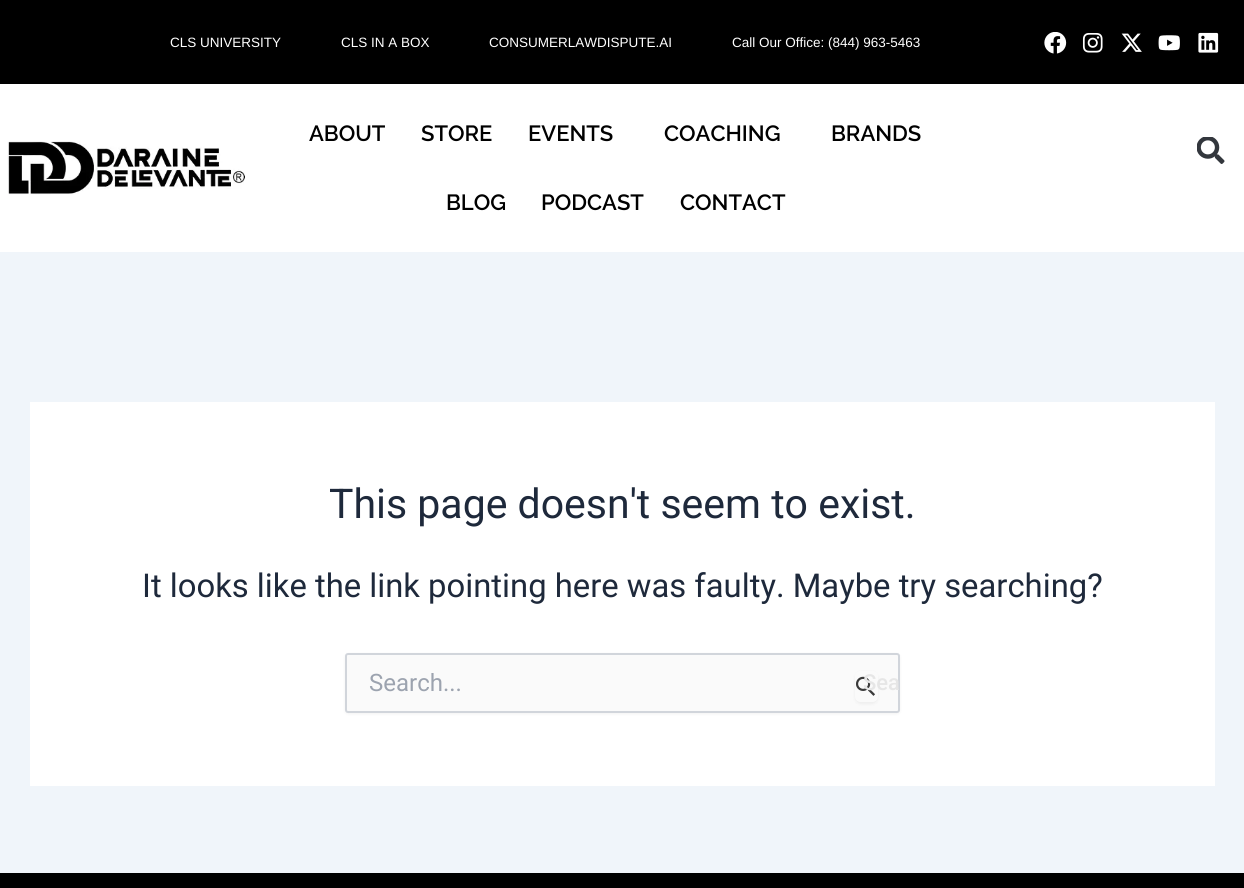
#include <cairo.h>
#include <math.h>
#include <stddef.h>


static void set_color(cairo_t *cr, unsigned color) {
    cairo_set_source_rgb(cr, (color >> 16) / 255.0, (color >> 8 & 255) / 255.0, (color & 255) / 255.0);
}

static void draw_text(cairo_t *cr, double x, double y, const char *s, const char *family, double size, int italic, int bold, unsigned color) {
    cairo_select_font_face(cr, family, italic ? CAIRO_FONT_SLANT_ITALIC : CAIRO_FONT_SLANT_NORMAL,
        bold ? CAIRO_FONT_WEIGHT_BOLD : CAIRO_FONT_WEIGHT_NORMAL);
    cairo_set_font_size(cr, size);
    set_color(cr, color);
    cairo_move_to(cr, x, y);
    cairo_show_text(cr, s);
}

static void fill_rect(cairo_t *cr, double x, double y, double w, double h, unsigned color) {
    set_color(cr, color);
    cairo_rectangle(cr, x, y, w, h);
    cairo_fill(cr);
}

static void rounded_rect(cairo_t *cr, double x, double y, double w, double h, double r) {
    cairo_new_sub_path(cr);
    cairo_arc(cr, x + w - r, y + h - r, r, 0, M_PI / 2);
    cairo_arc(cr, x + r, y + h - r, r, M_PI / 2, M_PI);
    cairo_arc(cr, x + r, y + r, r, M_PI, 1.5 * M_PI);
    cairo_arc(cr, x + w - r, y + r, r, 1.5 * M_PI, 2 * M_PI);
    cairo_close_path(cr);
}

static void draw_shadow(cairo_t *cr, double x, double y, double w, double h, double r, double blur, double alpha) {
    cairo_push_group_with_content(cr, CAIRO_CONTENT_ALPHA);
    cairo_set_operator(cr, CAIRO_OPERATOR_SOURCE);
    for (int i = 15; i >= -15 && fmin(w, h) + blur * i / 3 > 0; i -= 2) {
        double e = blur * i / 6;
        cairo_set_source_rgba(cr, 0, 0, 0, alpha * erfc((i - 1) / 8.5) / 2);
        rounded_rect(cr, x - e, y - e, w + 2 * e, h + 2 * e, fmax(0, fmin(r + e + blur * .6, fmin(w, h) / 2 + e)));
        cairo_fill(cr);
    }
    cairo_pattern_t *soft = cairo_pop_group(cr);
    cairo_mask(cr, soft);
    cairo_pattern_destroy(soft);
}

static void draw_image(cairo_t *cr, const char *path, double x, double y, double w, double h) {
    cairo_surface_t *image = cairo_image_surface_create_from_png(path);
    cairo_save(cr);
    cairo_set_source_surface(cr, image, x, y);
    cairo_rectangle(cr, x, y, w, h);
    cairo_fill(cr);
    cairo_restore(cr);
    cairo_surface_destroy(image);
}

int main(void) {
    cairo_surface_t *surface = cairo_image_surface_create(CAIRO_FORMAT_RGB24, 1244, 888);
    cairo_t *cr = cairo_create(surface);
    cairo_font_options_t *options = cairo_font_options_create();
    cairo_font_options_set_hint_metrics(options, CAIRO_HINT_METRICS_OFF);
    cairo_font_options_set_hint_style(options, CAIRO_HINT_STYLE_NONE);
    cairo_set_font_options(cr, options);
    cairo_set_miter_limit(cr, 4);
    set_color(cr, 0xF0F5FA);
    cairo_paint(cr);
    fill_rect(cr, 0, 0, 1244, 84, 0x000000);
    draw_text(cr, 170, 47, "CLS UNIVERSITY", "Liberation Sans", 13.5, 0, 0, 0xFFFFFF);
    draw_text(cr, 341, 47, "CLS IN A BOX", "Liberation Sans", 13.5, 0, 0, 0xFFFFFF);
    draw_text(cr, 489, 47, "CONSUMERLAWDISPUTE.AI", "Liberation Sans", 13.5, 0, 0, 0xFFFFFF);
    draw_text(cr, 732, 47, "Call Our Office: (844) 963-5463", "Liberation Sans", 13.5, 0, 0, 0xFFFFFF);
    draw_image(cr, "assets/img1.png", 1044, 32, 23, 22);
    draw_image(cr, "assets/img2.png", 1082, 33, 21, 20);
    draw_image(cr, "assets/img3.png", 1121, 33, 21, 19);
    draw_image(cr, "assets/img4.png", 1158, 35, 22, 16);
    draw_image(cr, "assets/img5.png", 1198, 32, 21, 21);
    fill_rect(cr, 0, 84, 1244, 168, 0xFFFFFF);
    draw_image(cr, "assets/img6.png", 7, 141, 238, 54);
    draw_text(cr, 309, 141, "ABOUT", "Raleway SemiBold", 22, 0, 0, 0x000000);
    draw_text(cr, 421, 141, "STORE", "Raleway SemiBold", 22, 0, 0, 0x000000);
    draw_text(cr, 528, 141, "EVENTS", "Raleway SemiBold", 22, 0, 0, 0x000000);
    draw_text(cr, 664, 141, "COACHING", "Raleway SemiBold", 22, 0, 0, 0x000000);
    draw_text(cr, 831, 141, "BRANDS", "Raleway SemiBold", 22, 0, 0, 0x000000);
    draw_text(cr, 446, 210, "BLOG", "Raleway SemiBold", 22, 0, 0, 0x000000);
    draw_text(cr, 541, 210, "PODCAST", "Raleway SemiBold", 22, 0, 0, 0x000000);
    draw_text(cr, 680, 210, "CONTACT", "Raleway SemiBold", 22, 0, 0, 0x000000);
    draw_image(cr, "assets/img7.png", 1197, 137, 28, 27);
    fill_rect(cr, 30, 402, 1185, 384, 0xFFFFFF);
    draw_text(cr, 329, 518, "This page doesn't seem to exist.", "Roboto", 41, 0, 0, 0x1E293B);
    draw_text(cr, 142, 597, "It looks like the link pointing here was faulty. Maybe try searching?", "Roboto", 32.8, 0, 0, 0x1E293B);
    set_color(cr, 0x000000);
    draw_shadow(cr, 345, 654, 555, 60, 3, 1.5, 0.05);
    set_color(cr, 0xFAFAFA);
    rounded_rect(cr, 346, 654, 553, 58, 2);
    cairo_fill_preserve(cr);
    set_color(cr, 0xD1D5DB);
    cairo_stroke(cr);
    draw_text(cr, 369, 691, "Search...", "Roboto", 24, 0, 0, 0x9CA3AF);
    cairo_save(cr);
    cairo_set_fill_rule(cr, CAIRO_FILL_RULE_EVEN_ODD);
    cairo_new_path(cr);
    cairo_move_to(cr, 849, 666);
    cairo_line_to(cr, 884, 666);
    cairo_line_to(cr, 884, 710);
    cairo_line_to(cr, 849, 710);
    cairo_close_path(cr);
    cairo_move_to(cr, 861, 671);
    cairo_line_to(cr, 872, 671);
    cairo_curve_to(cr, 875.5, 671, 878, 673.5, 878, 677);
    cairo_line_to(cr, 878, 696);
    cairo_curve_to(cr, 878, 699.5, 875.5, 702, 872, 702);
    cairo_line_to(cr, 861, 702);
    cairo_curve_to(cr, 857.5, 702, 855, 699.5, 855, 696);
    cairo_line_to(cr, 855, 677);
    cairo_curve_to(cr, 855, 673.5, 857.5, 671, 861, 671);
    cairo_close_path(cr);
    cairo_clip(cr);
    set_color(cr, 0x000000);
    draw_shadow(cr, 855, 672, 23, 32, 6, 1.5, 0.05);
    cairo_restore(cr);
    draw_image(cr, "assets/img8.png", 856, 676, 19, 20);
    draw_text(cr, 863, 690, "Sea", "Roboto Medium", 22, 0, 0, 0xE6E6E6);
    fill_rect(cr, 0, 873, 1244, 15, 0x000000);
    cairo_surface_write_to_png(surface, "output.png");
    cairo_font_options_destroy(options);
    cairo_destroy(cr);
    cairo_surface_destroy(surface);
    return 0;
}
